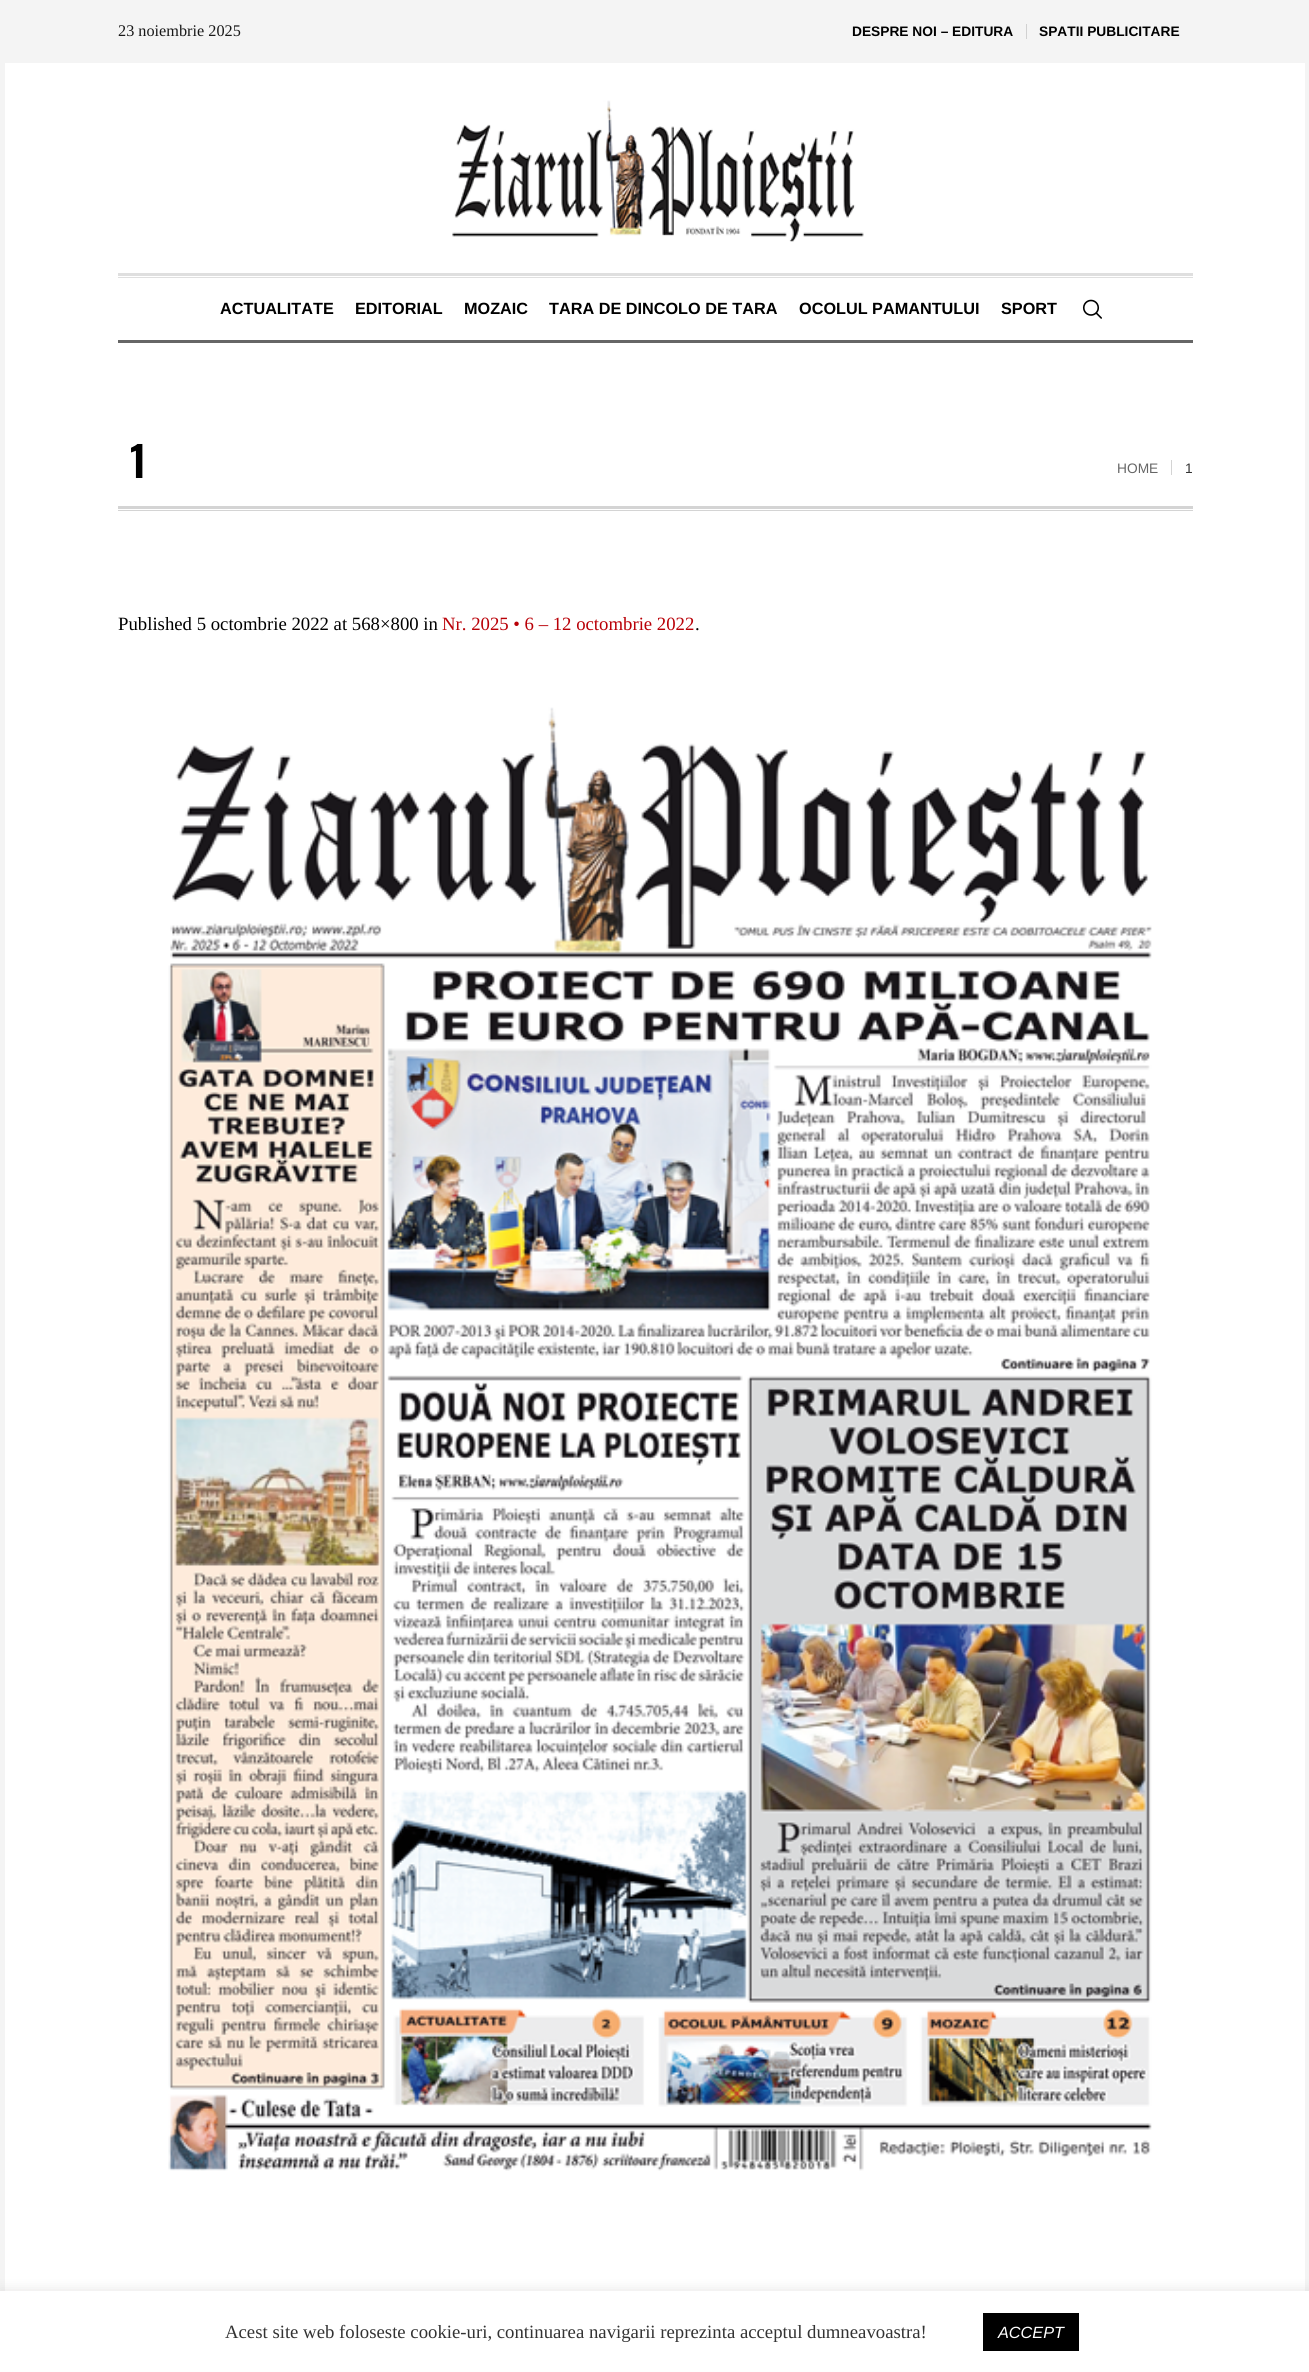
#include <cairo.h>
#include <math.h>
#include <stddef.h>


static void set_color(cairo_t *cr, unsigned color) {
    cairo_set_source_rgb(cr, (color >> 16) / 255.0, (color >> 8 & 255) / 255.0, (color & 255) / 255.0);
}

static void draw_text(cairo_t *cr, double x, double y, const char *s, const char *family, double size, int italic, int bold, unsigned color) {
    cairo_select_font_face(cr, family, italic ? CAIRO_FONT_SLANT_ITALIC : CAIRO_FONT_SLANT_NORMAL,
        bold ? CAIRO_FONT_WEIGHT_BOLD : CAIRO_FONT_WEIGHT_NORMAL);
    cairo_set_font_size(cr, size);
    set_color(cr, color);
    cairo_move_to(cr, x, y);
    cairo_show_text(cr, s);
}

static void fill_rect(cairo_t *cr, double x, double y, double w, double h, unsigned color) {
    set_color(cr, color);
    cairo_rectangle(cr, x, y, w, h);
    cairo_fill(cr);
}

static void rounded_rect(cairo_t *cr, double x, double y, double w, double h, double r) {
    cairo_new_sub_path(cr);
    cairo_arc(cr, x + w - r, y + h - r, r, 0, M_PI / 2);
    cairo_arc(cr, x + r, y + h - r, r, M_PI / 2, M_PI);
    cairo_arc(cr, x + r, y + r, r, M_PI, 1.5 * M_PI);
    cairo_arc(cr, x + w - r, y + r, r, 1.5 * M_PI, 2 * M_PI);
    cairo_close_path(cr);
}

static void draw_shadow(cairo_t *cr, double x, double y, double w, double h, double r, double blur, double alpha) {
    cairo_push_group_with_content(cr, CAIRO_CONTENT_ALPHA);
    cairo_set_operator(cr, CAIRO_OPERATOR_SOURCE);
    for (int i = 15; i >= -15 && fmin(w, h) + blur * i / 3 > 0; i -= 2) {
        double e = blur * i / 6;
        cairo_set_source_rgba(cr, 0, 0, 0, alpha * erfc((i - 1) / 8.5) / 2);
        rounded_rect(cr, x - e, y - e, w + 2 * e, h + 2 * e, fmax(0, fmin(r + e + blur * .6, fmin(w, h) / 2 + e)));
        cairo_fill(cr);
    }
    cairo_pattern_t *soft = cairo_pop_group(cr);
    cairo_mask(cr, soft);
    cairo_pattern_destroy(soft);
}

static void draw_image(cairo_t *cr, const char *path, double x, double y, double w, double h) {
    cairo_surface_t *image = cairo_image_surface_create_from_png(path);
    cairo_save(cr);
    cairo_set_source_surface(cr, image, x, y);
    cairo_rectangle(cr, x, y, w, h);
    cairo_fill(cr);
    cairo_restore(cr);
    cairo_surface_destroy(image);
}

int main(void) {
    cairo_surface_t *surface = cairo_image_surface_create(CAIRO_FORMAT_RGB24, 1309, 2372);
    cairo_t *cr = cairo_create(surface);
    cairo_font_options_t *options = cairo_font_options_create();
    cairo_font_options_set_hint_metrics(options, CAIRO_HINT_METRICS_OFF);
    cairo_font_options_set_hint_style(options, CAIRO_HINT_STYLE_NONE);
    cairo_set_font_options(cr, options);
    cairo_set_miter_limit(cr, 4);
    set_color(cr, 0xF4F4F4);
    cairo_paint(cr);
    draw_text(cr, 118, 36, "23 noiembrie 2025", "Liberation Serif", 16.25, 0, 0, 0x181818);
    draw_text(cr, 852, 36, "DESPRE NOI – EDITURA", "Liberation Sans", 13.75, 0, 1, 0x000000);
    fill_rect(cr, 1026, 24, 1, 15, 0xD1D1D1);
    draw_text(cr, 1039, 36, "SPATII PUBLICITARE", "Liberation Sans", 13.75, 0, 1, 0x000000);
    fill_rect(cr, 5, 63, 1300, 2228, 0xFFFFFF);
    draw_image(cr, "assets/img1.png", 452, 100, 412, 142);
    fill_rect(cr, 118, 277, 1075, 1, 0xDFDFDF);
    fill_rect(cr, 118, 273, 1075, 3, 0xDFDFDF);
    fill_rect(cr, 118, 340, 1075, 3, 0x666666);
    draw_text(cr, 220, 314, "ACTUALITATE", "Liberation Sans", 16.25, 0, 1, 0x000000);
    draw_text(cr, 355, 314, "EDITORIAL", "Liberation Sans", 16.25, 0, 1, 0x000000);
    draw_text(cr, 464, 314, "MOZAIC", "Liberation Sans", 16.25, 0, 1, 0x000000);
    draw_text(cr, 549, 314, "TARA DE DINCOLO DE TARA", "Liberation Sans", 16.25, 0, 1, 0x000000);
    draw_text(cr, 799, 314, "OCOLUL PAMANTULUI", "Liberation Sans", 16.25, 0, 1, 0x000000);
    draw_text(cr, 1001, 314, "SPORT", "Liberation Sans", 16.25, 0, 1, 0x000000);
    draw_image(cr, "assets/img2.png", 1082, 299, 20, 20);
    fill_rect(cr, 118, 506, 1075, 3, 0xD4D4D4);
    fill_rect(cr, 118, 510, 1075, 1, 0xD4D4D4);
    draw_text(cr, 130, 478, "1", "Oswald SemiBold", 42, 0, 0, 0x000000);
    draw_text(cr, 1117, 473, "HOME", "Liberation Sans", 13.75, 0, 0, 0x666666);
    fill_rect(cr, 1171, 460, 1, 15, 0xD4D4D4);
    draw_text(cr, 1185, 473, "1", "Liberation Sans", 13.75, 0, 0, 0x333333);
    draw_text(cr, 118, 630, "Published 5 octombrie 2022 at 568×800 in", "Liberation Serif", 18.75, 0, 0, 0x000000);
    draw_text(cr, 442, 630, "Nr. 2025 • 6 – 12 octombrie 2022", "Liberation Serif", 18.75, 0, 0, 0xB90007);
    draw_text(cr, 695, 630, ".", "Liberation Serif", 18.75, 0, 0, 0x000000);
    draw_image(cr, "assets/img3.png", 168, 707, 984, 1464);
    set_color(cr, 0xACABAB);
    draw_shadow(cr, 0, 2290, 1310, 81, 0, 6, 0.3);
    fill_rect(cr, 0, 2291, 1309, 81, 0xFFFFFF);
    draw_text(cr, 225, 2338, "Acest site web foloseste cookie-uri, continuarea navigarii reprezinta acceptul dumneavoastra!", "Liberation Serif", 18.75, 0, 0, 0x333333);
    fill_rect(cr, 983, 2313, 96, 38, 0x000000);
    draw_text(cr, 998, 2338, "ACCEPT", "Liberation Sans", 16.25, 1, 0, 0xFFFFFF);
    cairo_surface_write_to_png(surface, "output.png");
    cairo_font_options_destroy(options);
    cairo_destroy(cr);
    cairo_surface_destroy(surface);
    return 0;
}
